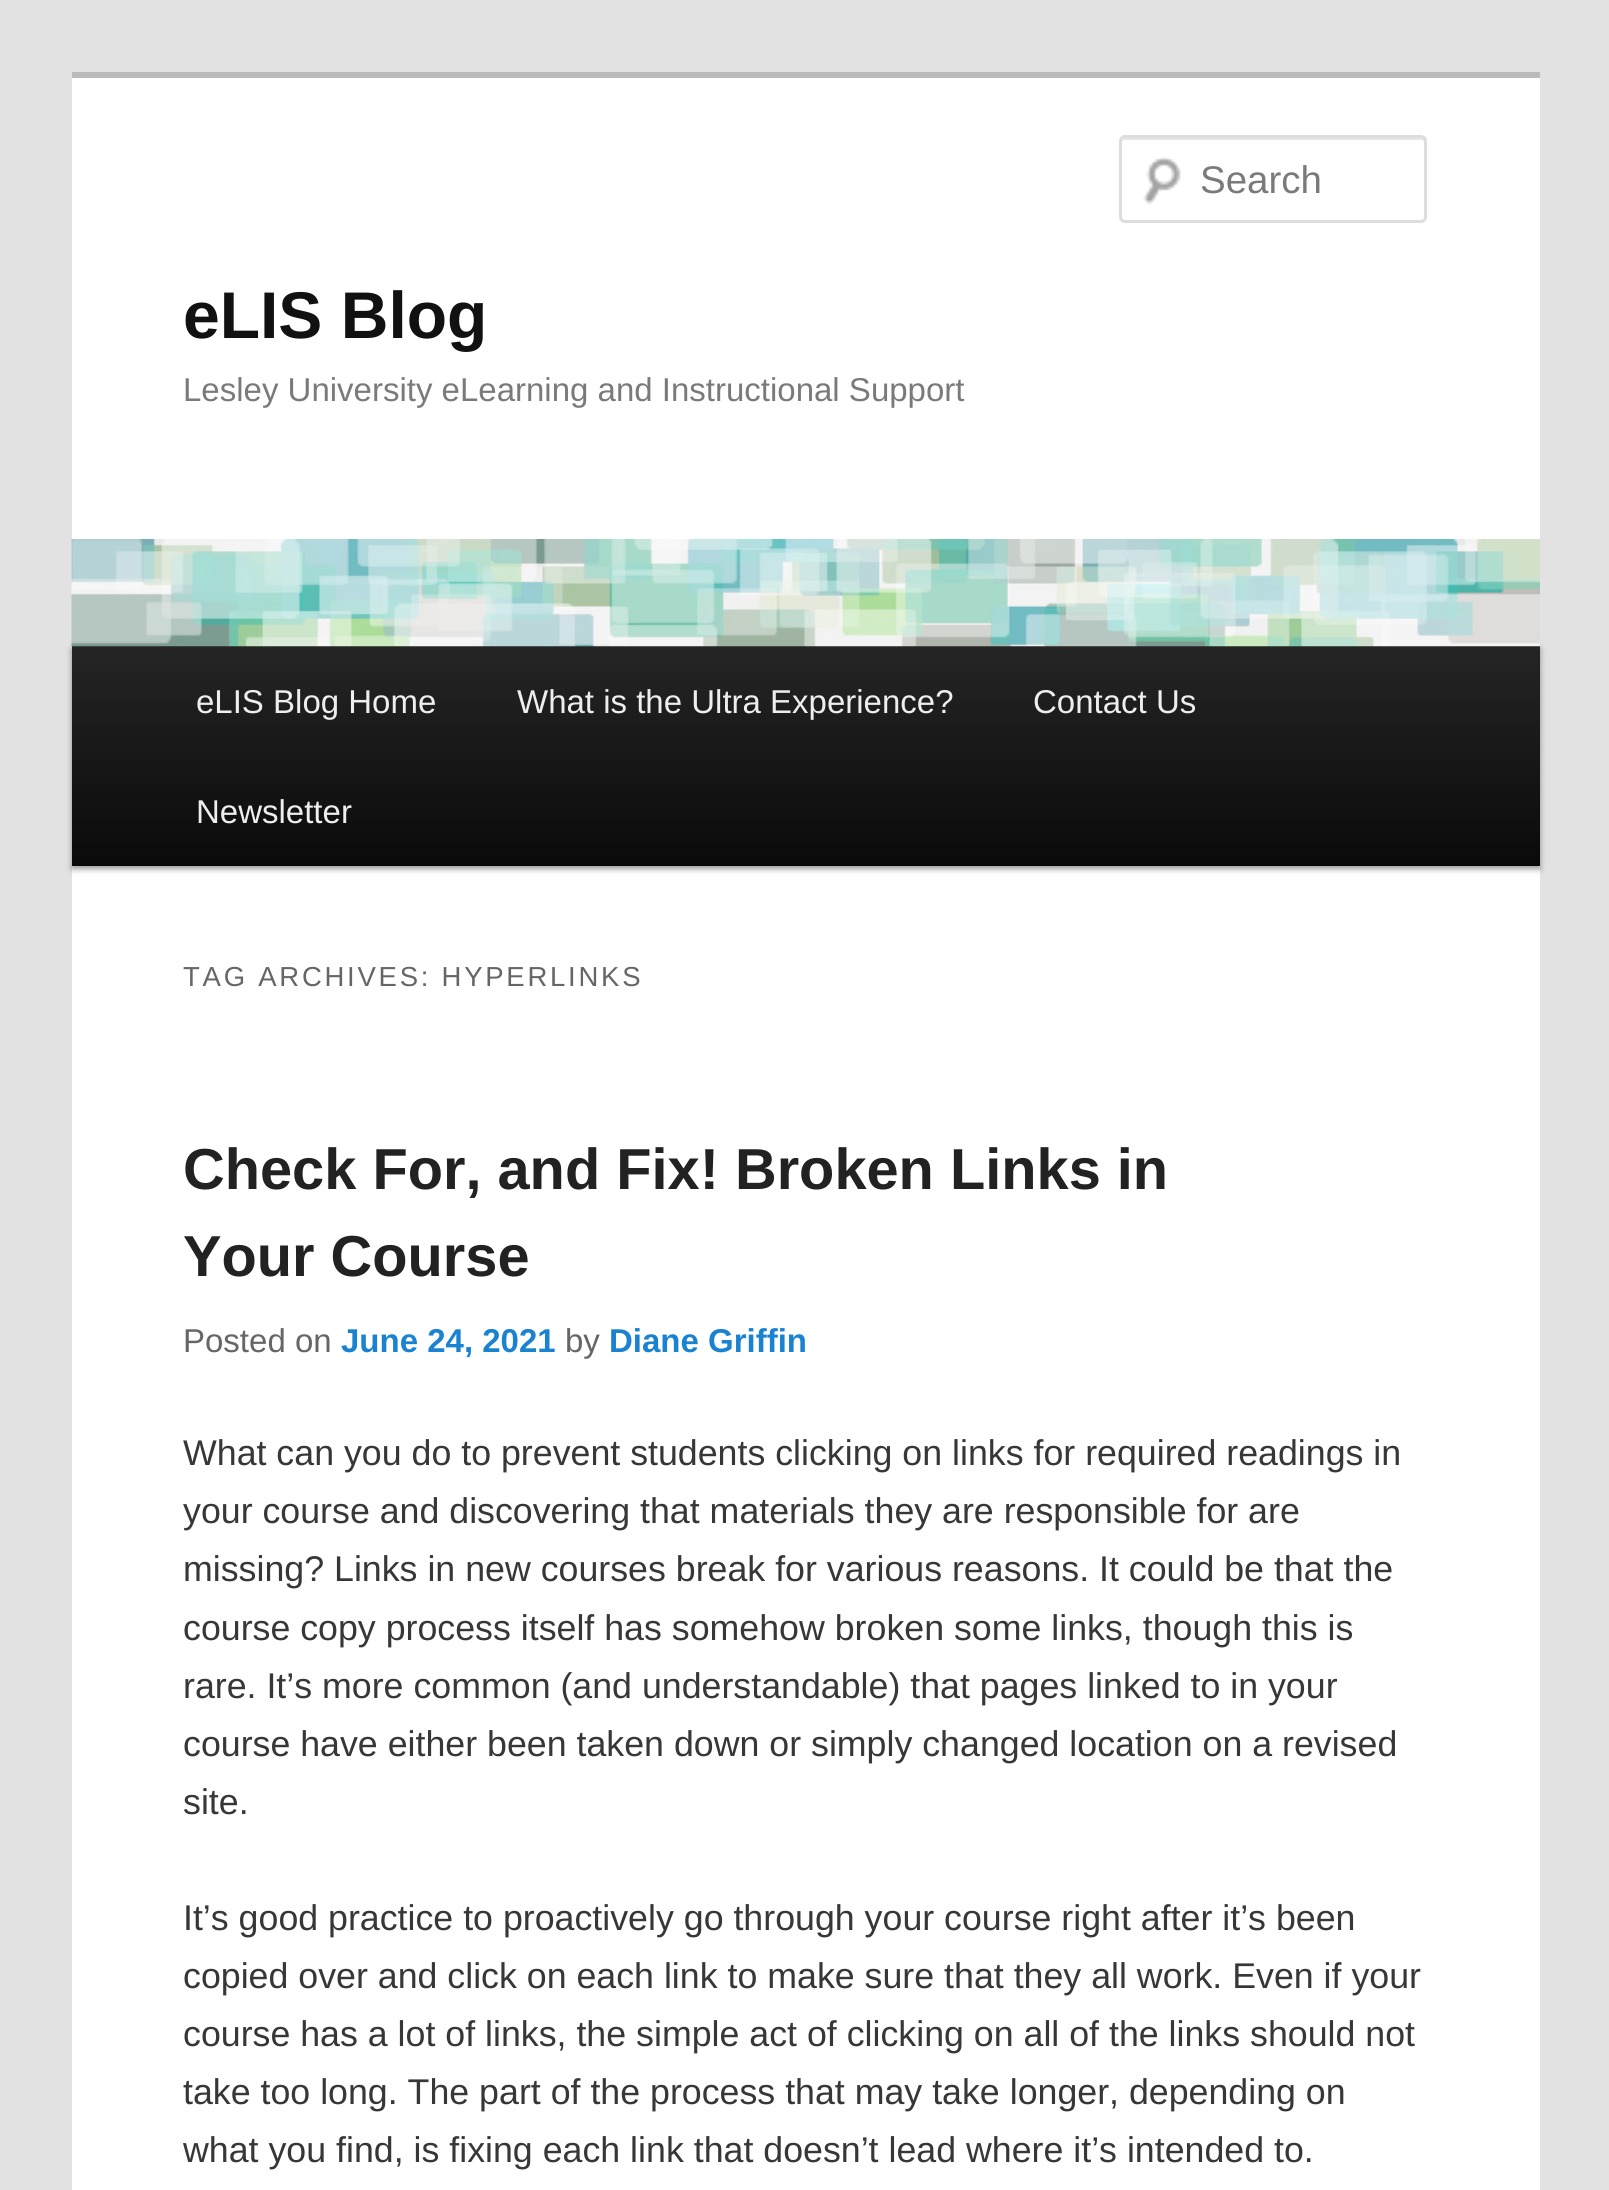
#include <cairo.h>
#include <math.h>
#include <stddef.h>


static void set_color(cairo_t *cr, unsigned color) {
    cairo_set_source_rgb(cr, (color >> 16) / 255.0, (color >> 8 & 255) / 255.0, (color & 255) / 255.0);
}

static void draw_text(cairo_t *cr, double x, double y, const char *s, const char *family, double size, int italic, int bold, unsigned color) {
    cairo_select_font_face(cr, family, italic ? CAIRO_FONT_SLANT_ITALIC : CAIRO_FONT_SLANT_NORMAL,
        bold ? CAIRO_FONT_WEIGHT_BOLD : CAIRO_FONT_WEIGHT_NORMAL);
    cairo_set_font_size(cr, size);
    set_color(cr, color);
    cairo_move_to(cr, x, y);
    cairo_show_text(cr, s);
}

static void draw_spaced(cairo_t *cr, double x, double y, const char *s, double letter, double word) {
    cairo_move_to(cr, x, y);
    while (*s) {
        char ch[5] = {0};
        int n = 0;
        do ch[n++] = *s++; while ((*s & 0xC0) == 0x80);
        cairo_show_text(cr, ch);
        cairo_rel_move_to(cr, letter + word * (*ch == ' '), 0);
    }
}

static void fill_rect(cairo_t *cr, double x, double y, double w, double h, unsigned color) {
    set_color(cr, color);
    cairo_rectangle(cr, x, y, w, h);
    cairo_fill(cr);
}

static void rounded_rect(cairo_t *cr, double x, double y, double w, double h, double r) {
    cairo_new_sub_path(cr);
    cairo_arc(cr, x + w - r, y + h - r, r, 0, M_PI / 2);
    cairo_arc(cr, x + r, y + h - r, r, M_PI / 2, M_PI);
    cairo_arc(cr, x + r, y + r, r, M_PI, 1.5 * M_PI);
    cairo_arc(cr, x + w - r, y + r, r, 1.5 * M_PI, 2 * M_PI);
    cairo_close_path(cr);
}

static void draw_shadow(cairo_t *cr, double x, double y, double w, double h, double r, double blur, double alpha) {
    cairo_push_group_with_content(cr, CAIRO_CONTENT_ALPHA);
    cairo_set_operator(cr, CAIRO_OPERATOR_SOURCE);
    for (int i = 15; i >= -15 && fmin(w, h) + blur * i / 3 > 0; i -= 2) {
        double e = blur * i / 6;
        cairo_set_source_rgba(cr, 0, 0, 0, alpha * erfc((i - 1) / 8.5) / 2);
        rounded_rect(cr, x - e, y - e, w + 2 * e, h + 2 * e, fmax(0, fmin(r + e + blur * .6, fmin(w, h) / 2 + e)));
        cairo_fill(cr);
    }
    cairo_pattern_t *soft = cairo_pop_group(cr);
    cairo_mask(cr, soft);
    cairo_pattern_destroy(soft);
}

static void draw_image(cairo_t *cr, const char *path, double x, double y, double w, double h) {
    cairo_surface_t *image = cairo_image_surface_create_from_png(path);
    cairo_save(cr);
    cairo_set_source_surface(cr, image, x, y);
    cairo_rectangle(cr, x, y, w, h);
    cairo_fill(cr);
    cairo_restore(cr);
    cairo_surface_destroy(image);
}

int main(void) {
    cairo_surface_t *surface = cairo_image_surface_create(CAIRO_FORMAT_RGB24, 1609, 2190);
    cairo_t *cr = cairo_create(surface);
    cairo_font_options_t *options = cairo_font_options_create();
    cairo_font_options_set_hint_metrics(options, CAIRO_HINT_METRICS_OFF);
    cairo_font_options_set_hint_style(options, CAIRO_HINT_STYLE_NONE);
    cairo_set_font_options(cr, options);
    cairo_set_miter_limit(cr, 4);
    cairo_pattern_t *gradient;
    set_color(cr, 0xE2E2E2);
    cairo_paint(cr);
    fill_rect(cr, 72, 78, 1468, 2112, 0xFFFFFF);
    fill_rect(cr, 72, 72, 1468, 6, 0xBBBBBB);
    draw_image(cr, "assets/img1.png", 1143, 157, 38, 48);
    set_color(cr, 0xE6E6E6);
    cairo_new_path(cr);
    cairo_move_to(cr, 1125, 140);
    cairo_line_to(cr, 1422, 140);
    cairo_curve_to(cr, 1423, 140, 1424, 141, 1424, 143);
    cairo_line_to(cr, 1424, 219);
    cairo_curve_to(cr, 1425, 219, 1425, 218, 1425, 217);
    cairo_line_to(cr, 1425, 141);
    cairo_curve_to(cr, 1425, 139, 1424, 138, 1422, 138);
    cairo_line_to(cr, 1125, 138);
    cairo_curve_to(cr, 1123, 138, 1122, 139, 1122, 141);
    cairo_line_to(cr, 1122, 143);
    cairo_curve_to(cr, 1122, 141, 1123, 140, 1125, 140);
    cairo_close_path(cr);
    cairo_fill(cr);
    rounded_rect(cr, 1120.5, 136.5, 305, 85, 4.5);
    set_color(cr, 0xDDDDDD);
    cairo_set_line_width(cr, 3);
    cairo_stroke(cr);
    draw_text(cr, 1200, 193, "Search", "Liberation Sans", 38.5, 0, 0, 0x7A7A7A);
    draw_text(cr, 183, 338, "eLIS Blog", "Liberation Sans", 66, 0, 1, 0x111111);
    draw_text(cr, 183, 401, "Lesley University eLearning and Instructional Support", "Liberation Sans", 33, 0, 0, 0x7A7A7A);
    set_color(cr, 0x000000);
    draw_shadow(cr, 72, 649, 1468, 220, 0, 3, 0.4);
    gradient = cairo_pattern_create_linear(806, 646, 806, 866);
    cairo_pattern_add_color_stop_rgba(gradient, 0, 0.145, 0.145, 0.145, 1);
    cairo_pattern_add_color_stop_rgba(gradient, 1, 0.039, 0.039, 0.039, 1);
    cairo_set_source(cr, gradient);
    cairo_pattern_destroy(gradient);
    cairo_rectangle(cr, 72, 646, 1468, 220);
    cairo_fill(cr);
    draw_image(cr, "assets/img2.png", 71, 539, 1469, 108);
    draw_text(cr, 196, 713, "eLIS Blog Home", "Liberation Sans", 33, 0, 0, 0xEEEEEE);
    draw_text(cr, 517, 713, "What is the Ultra Experience?", "Liberation Sans", 33, 0, 0, 0xEEEEEE);
    draw_text(cr, 1033, 713, "Contact Us", "Liberation Sans", 33, 0, 0, 0xEEEEEE);
    draw_text(cr, 196, 823, "Newsletter", "Liberation Sans", 33, 0, 0, 0xEEEEEE);
    cairo_set_font_size(cr, 27.5);
    set_color(cr, 0x666666);
    draw_spaced(cr, 183, 986, "TAG ARCHIVES: HYPERLINKS", 2.75, 0);
    draw_text(cr, 183, 1189, "Check For, and Fix! Broken Links in", "Liberation Sans", 57.75, 0, 1, 0x222222);
    draw_text(cr, 183, 1276, "Your Course", "Liberation Sans", 57.75, 0, 1, 0x222222);
    draw_text(cr, 183, 1352, "Posted on", "Liberation Sans", 33, 0, 0, 0x666666);
    draw_text(cr, 341, 1352, "June 24, 2021", "Liberation Sans", 33, 0, 1, 0x1982D1);
    draw_text(cr, 565, 1352, "by", "Liberation Sans", 33, 0, 0, 0x666666);
    draw_text(cr, 609, 1352, "Diane Griffin", "Liberation Sans", 33, 0, 1, 0x1982D1);
    draw_text(cr, 183, 1465, "What can you do to prevent students clicking on links for required readings in", "Liberation Sans", 35.75, 0, 0, 0x373737);
    draw_text(cr, 183, 1523, "your course and discovering that materials they are responsible for are", "Liberation Sans", 35.75, 0, 0, 0x373737);
    draw_text(cr, 183, 1581, "missing? Links in new courses break for various reasons. It could be that the", "Liberation Sans", 35.75, 0, 0, 0x373737);
    draw_text(cr, 183, 1640, "course copy process itself has somehow broken some links, though this is", "Liberation Sans", 35.75, 0, 0, 0x373737);
    draw_text(cr, 183, 1698, "rare. It’s more common (and understandable) that pages linked to in your", "Liberation Sans", 35.75, 0, 0, 0x373737);
    draw_text(cr, 183, 1756, "course have either been taken down or simply changed location on a revised", "Liberation Sans", 35.75, 0, 0, 0x373737);
    draw_text(cr, 183, 1814, "site.", "Liberation Sans", 35.75, 0, 0, 0x373737);
    draw_text(cr, 183, 1930, "It’s good practice to proactively go through your course right after it’s been", "Liberation Sans", 35.75, 0, 0, 0x373737);
    draw_text(cr, 183, 1988, "copied over and click on each link to make sure that they all work. Even if your", "Liberation Sans", 35.75, 0, 0, 0x373737);
    draw_text(cr, 183, 2046, "course has a lot of links, the simple act of clicking on all of the links should not", "Liberation Sans", 35.75, 0, 0, 0x373737);
    draw_text(cr, 183, 2104, "take too long. The part of the process that may take longer, depending on", "Liberation Sans", 35.75, 0, 0, 0x373737);
    draw_text(cr, 183, 2162, "what you find, is fixing each link that doesn’t lead where it’s intended to.", "Liberation Sans", 35.75, 0, 0, 0x373737);
    cairo_surface_write_to_png(surface, "output.png");
    cairo_font_options_destroy(options);
    cairo_destroy(cr);
    cairo_surface_destroy(surface);
    return 0;
}
